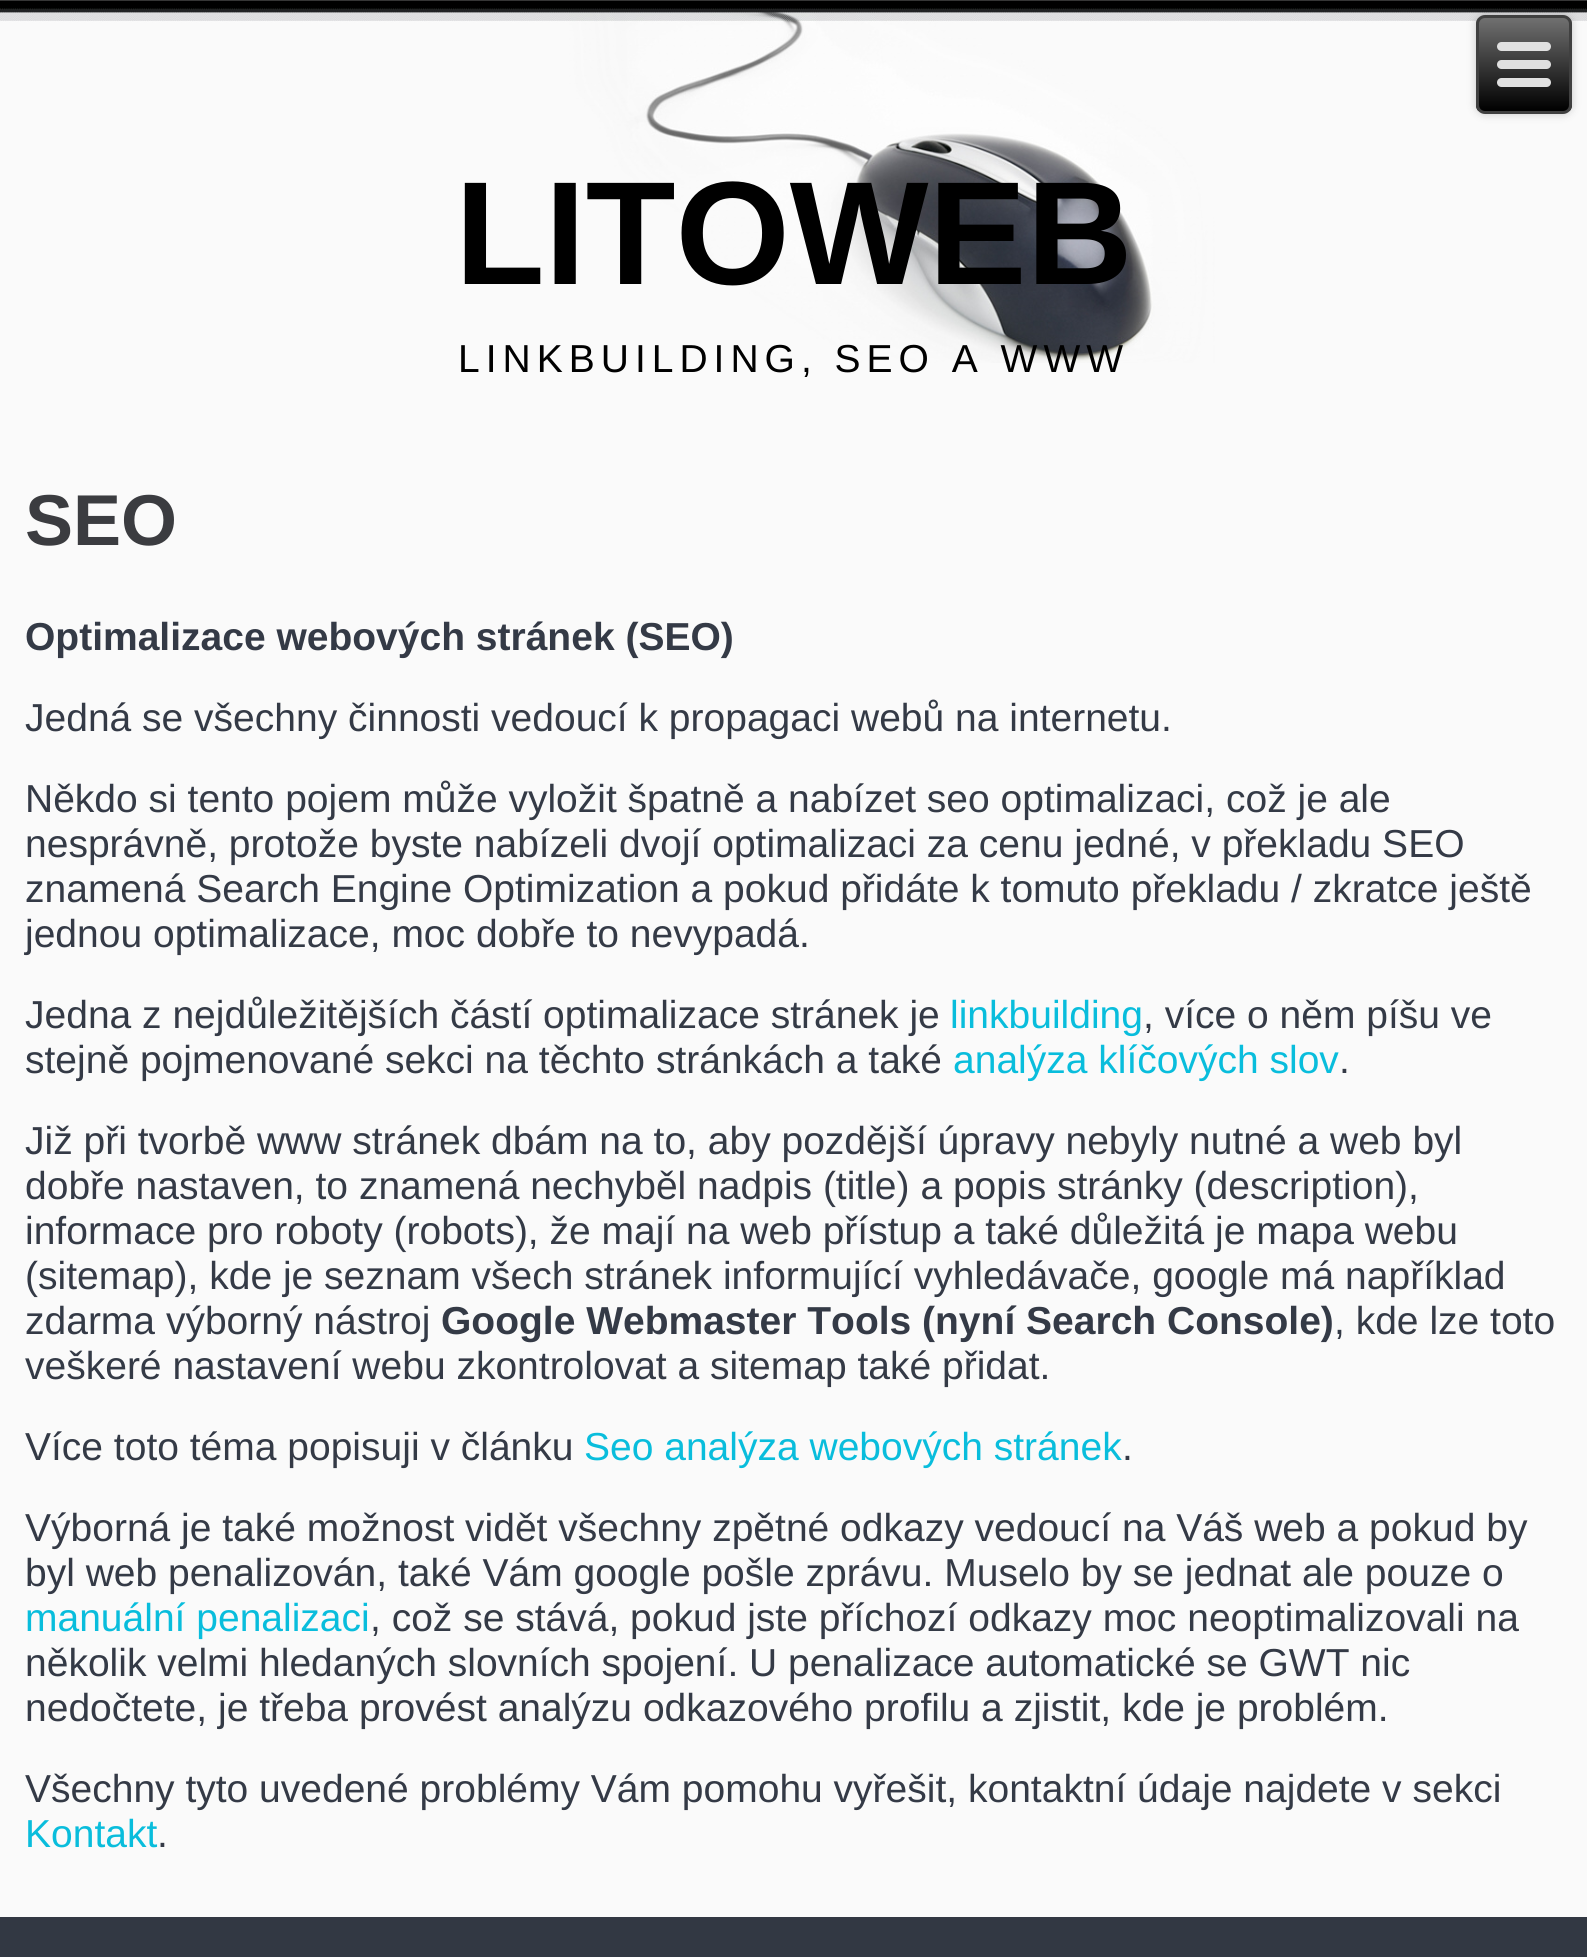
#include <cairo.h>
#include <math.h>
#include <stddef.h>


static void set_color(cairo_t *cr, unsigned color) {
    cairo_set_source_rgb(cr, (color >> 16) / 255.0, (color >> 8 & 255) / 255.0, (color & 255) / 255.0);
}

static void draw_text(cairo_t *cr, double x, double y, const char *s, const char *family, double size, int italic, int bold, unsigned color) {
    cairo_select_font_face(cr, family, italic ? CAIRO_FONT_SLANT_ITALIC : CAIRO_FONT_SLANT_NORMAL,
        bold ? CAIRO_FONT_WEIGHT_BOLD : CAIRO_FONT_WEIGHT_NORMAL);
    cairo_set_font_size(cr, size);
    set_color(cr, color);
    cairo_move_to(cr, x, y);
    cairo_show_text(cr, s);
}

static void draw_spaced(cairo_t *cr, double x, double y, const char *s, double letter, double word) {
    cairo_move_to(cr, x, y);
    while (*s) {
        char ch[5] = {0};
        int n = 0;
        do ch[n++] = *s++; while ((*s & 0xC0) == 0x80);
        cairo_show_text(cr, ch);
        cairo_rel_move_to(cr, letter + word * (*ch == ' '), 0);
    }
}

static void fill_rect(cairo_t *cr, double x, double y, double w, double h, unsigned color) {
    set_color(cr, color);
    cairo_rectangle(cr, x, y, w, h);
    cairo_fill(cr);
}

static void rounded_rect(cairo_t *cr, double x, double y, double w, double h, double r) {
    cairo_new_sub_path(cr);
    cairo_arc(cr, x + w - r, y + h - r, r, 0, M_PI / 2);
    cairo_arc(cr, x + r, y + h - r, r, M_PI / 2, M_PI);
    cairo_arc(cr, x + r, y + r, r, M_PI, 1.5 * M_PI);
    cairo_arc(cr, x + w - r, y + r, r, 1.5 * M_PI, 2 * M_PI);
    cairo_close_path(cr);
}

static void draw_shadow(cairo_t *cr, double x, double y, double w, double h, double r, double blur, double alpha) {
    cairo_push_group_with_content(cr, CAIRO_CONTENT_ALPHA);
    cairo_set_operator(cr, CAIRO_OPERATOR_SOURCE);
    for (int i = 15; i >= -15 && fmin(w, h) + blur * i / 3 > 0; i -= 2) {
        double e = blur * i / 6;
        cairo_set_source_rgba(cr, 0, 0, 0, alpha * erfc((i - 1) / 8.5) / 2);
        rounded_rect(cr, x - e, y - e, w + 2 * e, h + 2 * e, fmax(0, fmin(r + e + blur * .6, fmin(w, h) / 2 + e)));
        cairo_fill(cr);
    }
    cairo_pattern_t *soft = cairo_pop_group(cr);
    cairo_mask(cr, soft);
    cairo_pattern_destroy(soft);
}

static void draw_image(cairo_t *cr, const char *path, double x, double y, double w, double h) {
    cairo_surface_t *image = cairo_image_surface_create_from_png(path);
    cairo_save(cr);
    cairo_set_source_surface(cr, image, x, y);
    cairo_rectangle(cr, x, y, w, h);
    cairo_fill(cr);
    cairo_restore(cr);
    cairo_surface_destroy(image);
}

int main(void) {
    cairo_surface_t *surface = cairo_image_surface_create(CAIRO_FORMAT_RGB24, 1587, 1957);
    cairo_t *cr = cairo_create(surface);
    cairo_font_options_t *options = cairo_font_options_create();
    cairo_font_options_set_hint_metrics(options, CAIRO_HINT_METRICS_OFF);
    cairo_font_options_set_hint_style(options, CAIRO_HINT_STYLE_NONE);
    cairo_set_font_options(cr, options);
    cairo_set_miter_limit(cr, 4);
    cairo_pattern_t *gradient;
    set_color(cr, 0xFAFAFA);
    cairo_paint(cr);
    draw_image(cr, "assets/img1.png", 0, 0, 1587, 363);
    set_color(cr, 0x000000);
    draw_shadow(cr, 1476, 15, 96, 99, 9, 4.5, 0.2);
    cairo_save(cr);
    rounded_rect(cr, 1476, 15, 96, 99, 9);
    cairo_clip(cr);
    gradient = cairo_pattern_create_linear(1524, 18, 1524, 111);
    cairo_pattern_add_color_stop_rgba(gradient, 0, 0.439, 0.439, 0.439, 1);
    cairo_pattern_add_color_stop_rgba(gradient, 1, 0, 0, 0, 1);
    cairo_set_source(cr, gradient);
    cairo_pattern_destroy(gradient);
    cairo_rectangle(cr, 1476, 18, 96, 93);
    cairo_fill(cr);
    cairo_restore(cr);
    rounded_rect(cr, 1477.5, 16.5, 93, 96, 7.5);
    set_color(cr, 0x404040);
    cairo_set_line_width(cr, 3);
    cairo_stroke(cr);
    set_color(cr, 0xE0E0E0);
    rounded_rect(cr, 1497, 42, 54, 9, 4.5);
    cairo_fill(cr);
    rounded_rect(cr, 1497, 60, 54, 9, 4.5);
    cairo_fill(cr);
    rounded_rect(cr, 1497, 78, 54, 9, 4.5);
    cairo_fill(cr);
    draw_text(cr, 455, 284, "LITOWEB", "Liberation Sans", 147, 0, 1, 0x000000);
    cairo_select_font_face(cr, "Liberation Sans", CAIRO_FONT_SLANT_NORMAL, CAIRO_FONT_WEIGHT_NORMAL);
    cairo_set_font_size(cr, 39);
    draw_spaced(cr, 458, 372, "LINKBUILDING, SEO A WWW", 6, 0);
    draw_text(cr, 25, 545, "SEO", "Liberation Sans", 72, 0, 1, 0x3B3C40);
    draw_text(cr, 25, 650, "Optimalizace webových stránek (SEO)", "Liberation Sans", 39, 0, 1, 0x343A46);
    draw_text(cr, 25, 731, "Jedná se všechny činnosti vedoucí k propagaci webů na internetu.", "Liberation Sans", 39, 0, 0, 0x343A46);
    draw_text(cr, 25, 812, "Někdo si tento pojem může vyložit špatně a nabízet seo optimalizaci, což je ale", "Liberation Sans", 39, 0, 0, 0x343A46);
    draw_text(cr, 25, 857, "nesprávně, protože byste nabízeli dvojí optimalizaci za cenu jedné, v překladu SEO", "Liberation Sans", 39, 0, 0, 0x343A46);
    draw_text(cr, 25, 902, "znamená Search Engine Optimization a pokud přidáte k tomuto překladu / zkratce ještě", "Liberation Sans", 39, 0, 0, 0x343A46);
    draw_text(cr, 25, 947, "jednou optimalizace, moc dobře to nevypadá.", "Liberation Sans", 39, 0, 0, 0x343A46);
    draw_text(cr, 25, 1028, "Jedna z nejdůležitějších částí optimalizace stránek je", "Liberation Sans", 39, 0, 0, 0x343A46);
    draw_text(cr, 950, 1028, "linkbuilding", "Liberation Sans", 39, 0, 0, 0x09BDDC);
    draw_text(cr, 1143, 1028, ", více o něm píšu ve", "Liberation Sans", 39, 0, 0, 0x343A46);
    draw_text(cr, 25, 1073, "stejně pojmenované sekci na těchto stránkách a také", "Liberation Sans", 39, 0, 0, 0x343A46);
    draw_text(cr, 953, 1073, "analýza klíčových slov", "Liberation Sans", 39, 0, 0, 0x09BDDC);
    draw_text(cr, 1339, 1073, ".", "Liberation Sans", 39, 0, 0, 0x343A46);
    draw_text(cr, 25, 1154, "Již při tvorbě www stránek dbám na to, aby pozdější úpravy nebyly nutné a web byl", "Liberation Sans", 39, 0, 0, 0x343A46);
    draw_text(cr, 25, 1199, "dobře nastaven, to znamená nechyběl nadpis (title) a popis stránky (description),", "Liberation Sans", 39, 0, 0, 0x343A46);
    draw_text(cr, 25, 1244, "informace pro roboty (robots), že mají na web přístup a také důležitá je mapa webu", "Liberation Sans", 39, 0, 0, 0x343A46);
    draw_text(cr, 25, 1289, "(sitemap), kde je seznam všech stránek informující vyhledávače, google má například", "Liberation Sans", 39, 0, 0, 0x343A46);
    draw_text(cr, 25, 1334, "zdarma výborný nástroj", "Liberation Sans", 39, 0, 0, 0x343A46);
    draw_text(cr, 441, 1334, "Google Webmaster Tools (nyní Search Console)", "Liberation Sans", 39, 0, 1, 0x343A46);
    draw_text(cr, 1334, 1334, ", kde lze toto", "Liberation Sans", 39, 0, 0, 0x343A46);
    draw_text(cr, 25, 1379, "veškeré nastavení webu zkontrolovat a sitemap také přidat.", "Liberation Sans", 39, 0, 0, 0x343A46);
    draw_text(cr, 25, 1460, "Více toto téma popisuji v článku", "Liberation Sans", 39, 0, 0, 0x343A46);
    draw_text(cr, 584, 1460, "Seo analýza webových stránek", "Liberation Sans", 39, 0, 0, 0x09BDDC);
    draw_text(cr, 1122, 1460, ".", "Liberation Sans", 39, 0, 0, 0x343A46);
    draw_text(cr, 25, 1541, "Výborná je také možnost vidět všechny zpětné odkazy vedoucí na Váš web a pokud by", "Liberation Sans", 39, 0, 0, 0x343A46);
    draw_text(cr, 25, 1586, "byl web penalizován, také Vám google pošle zprávu. Muselo by se jednat ale pouze o", "Liberation Sans", 39, 0, 0, 0x343A46);
    draw_text(cr, 25, 1631, "manuální penalizaci", "Liberation Sans", 39, 0, 0, 0x09BDDC);
    draw_text(cr, 370, 1631, ", což se stává, pokud jste příchozí odkazy moc neoptimalizovali na", "Liberation Sans", 39, 0, 0, 0x343A46);
    draw_text(cr, 25, 1676, "několik velmi hledaných slovních spojení. U penalizace automatické se GWT nic", "Liberation Sans", 39, 0, 0, 0x343A46);
    draw_text(cr, 25, 1721, "nedočtete, je třeba provést analýzu odkazového profilu a zjistit, kde je problém.", "Liberation Sans", 39, 0, 0, 0x343A46);
    draw_text(cr, 25, 1802, "Všechny tyto uvedené problémy Vám pomohu vyřešit, kontaktní údaje najdete v sekci", "Liberation Sans", 39, 0, 0, 0x343A46);
    draw_text(cr, 25, 1847, "Kontakt", "Liberation Sans", 39, 0, 0, 0x09BDDC);
    draw_text(cr, 157, 1847, ".", "Liberation Sans", 39, 0, 0, 0x343A46);
    fill_rect(cr, 0, 1917, 1587, 40, 0x323843);
    cairo_surface_write_to_png(surface, "output.png");
    cairo_font_options_destroy(options);
    cairo_destroy(cr);
    cairo_surface_destroy(surface);
    return 0;
}
